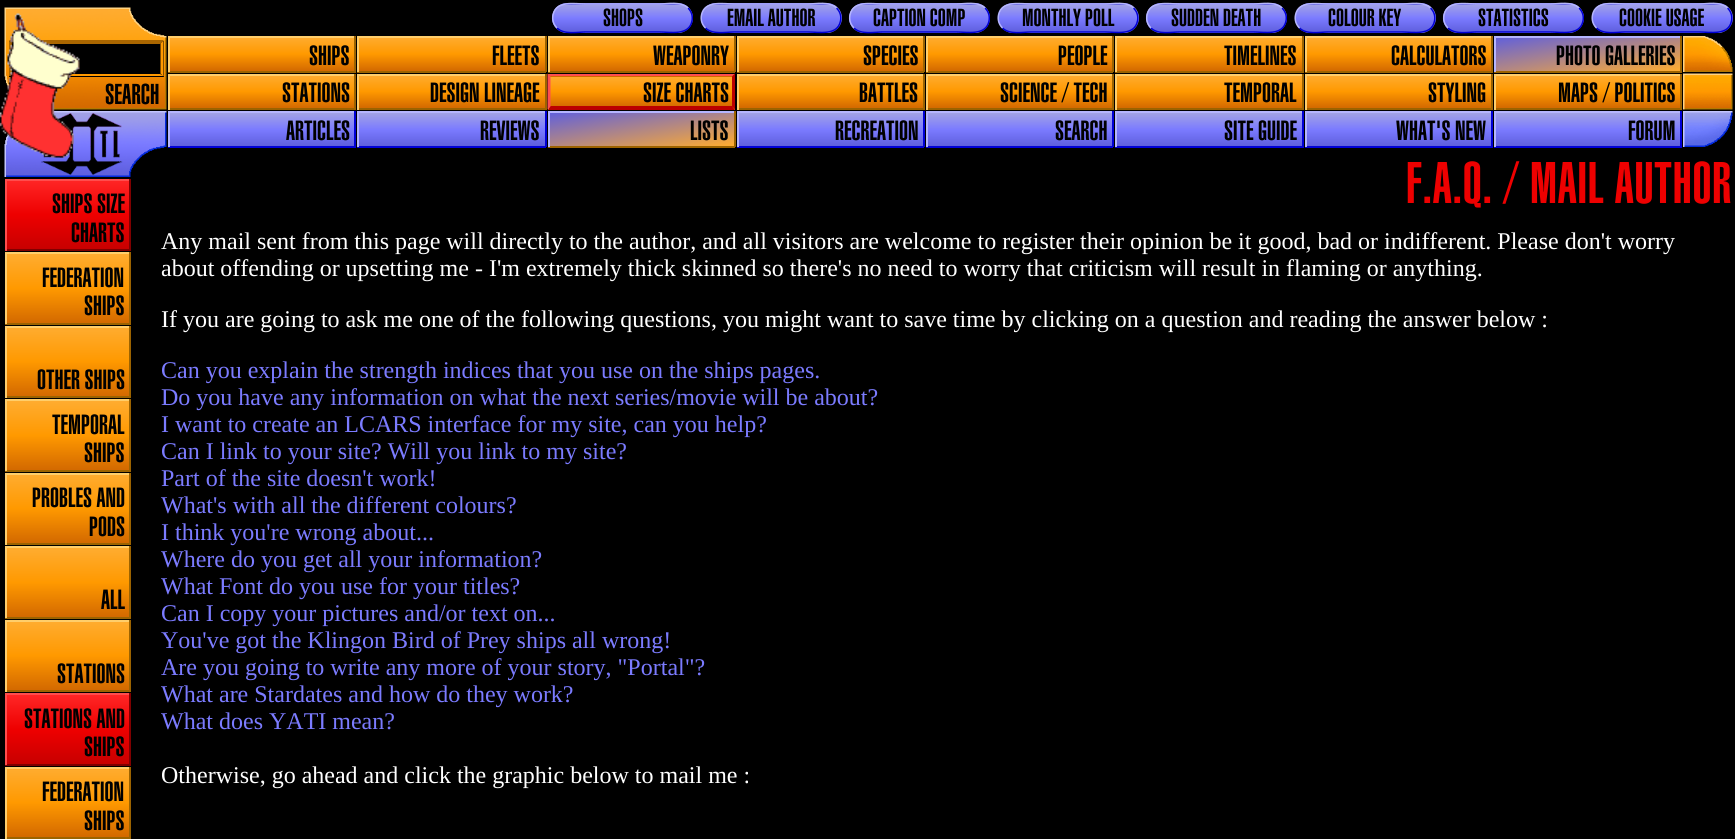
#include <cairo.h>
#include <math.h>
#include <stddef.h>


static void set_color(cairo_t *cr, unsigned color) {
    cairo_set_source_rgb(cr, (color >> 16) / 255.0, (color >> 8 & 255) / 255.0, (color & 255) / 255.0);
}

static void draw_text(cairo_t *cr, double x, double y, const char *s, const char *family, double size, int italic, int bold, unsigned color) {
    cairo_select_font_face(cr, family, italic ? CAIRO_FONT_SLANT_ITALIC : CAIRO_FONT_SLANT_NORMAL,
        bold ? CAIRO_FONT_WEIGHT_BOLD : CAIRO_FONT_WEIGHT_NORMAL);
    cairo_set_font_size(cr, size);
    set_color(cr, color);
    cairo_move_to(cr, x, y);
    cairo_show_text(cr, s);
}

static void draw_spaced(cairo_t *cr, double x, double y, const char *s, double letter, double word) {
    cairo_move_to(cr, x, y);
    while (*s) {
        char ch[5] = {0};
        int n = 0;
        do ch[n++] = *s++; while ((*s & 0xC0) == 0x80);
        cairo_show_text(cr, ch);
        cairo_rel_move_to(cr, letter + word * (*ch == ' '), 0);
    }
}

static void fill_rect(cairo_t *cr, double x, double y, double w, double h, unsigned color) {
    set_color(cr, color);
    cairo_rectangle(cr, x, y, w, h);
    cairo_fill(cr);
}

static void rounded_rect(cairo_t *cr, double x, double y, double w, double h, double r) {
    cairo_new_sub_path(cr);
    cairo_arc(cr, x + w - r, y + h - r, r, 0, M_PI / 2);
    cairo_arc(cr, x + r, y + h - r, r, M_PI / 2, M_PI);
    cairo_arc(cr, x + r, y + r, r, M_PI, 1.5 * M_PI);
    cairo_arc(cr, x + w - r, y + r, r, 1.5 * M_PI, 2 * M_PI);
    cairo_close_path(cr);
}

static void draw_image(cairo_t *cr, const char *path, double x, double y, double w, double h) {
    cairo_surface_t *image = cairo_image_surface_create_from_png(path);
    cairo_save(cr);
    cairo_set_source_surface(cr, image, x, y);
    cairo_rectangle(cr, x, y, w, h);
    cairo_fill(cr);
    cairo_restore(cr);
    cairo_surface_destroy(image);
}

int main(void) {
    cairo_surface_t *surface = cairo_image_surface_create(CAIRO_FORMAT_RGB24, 1735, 839);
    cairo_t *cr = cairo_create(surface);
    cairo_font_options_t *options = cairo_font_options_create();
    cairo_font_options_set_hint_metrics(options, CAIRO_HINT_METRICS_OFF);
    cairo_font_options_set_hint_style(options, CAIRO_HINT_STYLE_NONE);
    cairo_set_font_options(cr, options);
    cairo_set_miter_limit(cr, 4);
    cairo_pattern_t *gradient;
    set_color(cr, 0x000000);
    cairo_paint(cr);
    cairo_save(cr);
    rounded_rect(cr, 552, 3, 141, 30, 15);
    cairo_clip(cr);
    gradient = cairo_pattern_create_linear(623, -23, 623, 4.5);
    cairo_pattern_add_color_stop_rgba(gradient, 0, 0.635, 0.635, 0.898, 1);
    cairo_pattern_add_color_stop_rgba(gradient, 0.5, 0.482, 0.482, 1, 1);
    cairo_pattern_add_color_stop_rgba(gradient, 1, 0.373, 0.373, 0.867, 1);
    cairo_set_source(cr, gradient);
    cairo_pattern_destroy(gradient);
    cairo_rectangle(cr, 552, 3, 141, 2);
    cairo_fill(cr);
    gradient = cairo_pattern_create_linear(623, 4.5, 623, 32);
    cairo_pattern_add_color_stop_rgba(gradient, 0, 0.635, 0.635, 0.898, 1);
    cairo_pattern_add_color_stop_rgba(gradient, 0.5, 0.482, 0.482, 1, 1);
    cairo_pattern_add_color_stop_rgba(gradient, 1, 0.373, 0.373, 0.867, 1);
    cairo_set_source(cr, gradient);
    cairo_pattern_destroy(gradient);
    cairo_rectangle(cr, 552, 5, 141, 27);
    cairo_fill(cr);
    gradient = cairo_pattern_create_linear(623, 31, 623, 59);
    cairo_pattern_add_color_stop_rgba(gradient, 0, 0.635, 0.635, 0.898, 1);
    cairo_pattern_add_color_stop_rgba(gradient, 0.5, 0.482, 0.482, 1, 1);
    cairo_pattern_add_color_stop_rgba(gradient, 1, 0.373, 0.373, 0.867, 1);
    cairo_set_source(cr, gradient);
    cairo_pattern_destroy(gradient);
    cairo_rectangle(cr, 562, 32, 121, 1);
    cairo_fill(cr);
    cairo_restore(cr);
    cairo_new_path(cr);
    cairo_move_to(cr, 688, 8);
    cairo_curve_to(cr, 691.5, 11.5, 693, 16, 692, 21);
    cairo_curve_to(cr, 689, 36, 670.5, 32, 659.5, 32);
    cairo_line_to(cr, 585.5, 32);
    cairo_curve_to(cr, 577.5, 32, 564, 35, 557, 28);
    set_color(cr, 0x0000D6);
    cairo_set_line_width(cr, 1.5);
    cairo_stroke(cr);
    cairo_new_path(cr);
    cairo_move_to(cr, 557, 28);
    cairo_curve_to(cr, 553.5, 24.5, 552, 20, 553, 15);
    cairo_curve_to(cr, 556, 0, 574.5, 4, 585.5, 4);
    cairo_line_to(cr, 659.5, 4);
    cairo_curve_to(cr, 667.5, 4, 681, 1, 688, 8);
    set_color(cr, 0xB5B5FF);
    cairo_stroke(cr);
    draw_text(cr, 603, 26, "SHOPS", "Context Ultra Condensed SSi", 24, 0, 0, 0x000000);
    cairo_save(cr);
    rounded_rect(cr, 701, 3, 141, 30, 15);
    cairo_clip(cr);
    gradient = cairo_pattern_create_linear(771, -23, 771, 4.5);
    cairo_pattern_add_color_stop_rgba(gradient, 0, 0.635, 0.635, 0.898, 1);
    cairo_pattern_add_color_stop_rgba(gradient, 0.5, 0.482, 0.482, 1, 1);
    cairo_pattern_add_color_stop_rgba(gradient, 1, 0.373, 0.373, 0.867, 1);
    cairo_set_source(cr, gradient);
    cairo_pattern_destroy(gradient);
    cairo_rectangle(cr, 701, 3, 141, 2);
    cairo_fill(cr);
    gradient = cairo_pattern_create_linear(771, 4.5, 771, 32);
    cairo_pattern_add_color_stop_rgba(gradient, 0, 0.635, 0.635, 0.898, 1);
    cairo_pattern_add_color_stop_rgba(gradient, 0.5, 0.482, 0.482, 1, 1);
    cairo_pattern_add_color_stop_rgba(gradient, 1, 0.373, 0.373, 0.867, 1);
    cairo_set_source(cr, gradient);
    cairo_pattern_destroy(gradient);
    cairo_rectangle(cr, 701, 5, 141, 27);
    cairo_fill(cr);
    gradient = cairo_pattern_create_linear(771, 31, 771, 59);
    cairo_pattern_add_color_stop_rgba(gradient, 0, 0.635, 0.635, 0.898, 1);
    cairo_pattern_add_color_stop_rgba(gradient, 0.5, 0.482, 0.482, 1, 1);
    cairo_pattern_add_color_stop_rgba(gradient, 1, 0.373, 0.373, 0.867, 1);
    cairo_set_source(cr, gradient);
    cairo_pattern_destroy(gradient);
    cairo_rectangle(cr, 711, 32, 121, 1);
    cairo_fill(cr);
    cairo_restore(cr);
    cairo_new_path(cr);
    cairo_move_to(cr, 836.5, 8);
    cairo_curve_to(cr, 840, 11.5, 841.5, 16, 840.5, 21);
    cairo_curve_to(cr, 837.5, 36, 819, 32, 808, 32);
    cairo_line_to(cr, 734, 32);
    cairo_curve_to(cr, 726, 32, 712.5, 35, 705.5, 28);
    set_color(cr, 0x0000D6);
    cairo_stroke(cr);
    cairo_new_path(cr);
    cairo_move_to(cr, 705.5, 28);
    cairo_curve_to(cr, 702, 24.5, 700.5, 20, 701.5, 15);
    cairo_curve_to(cr, 704.5, 0, 723, 4, 734, 4);
    cairo_line_to(cr, 808, 4);
    cairo_curve_to(cr, 816, 4, 829.5, 1, 836.5, 8);
    set_color(cr, 0xB5B5FF);
    cairo_stroke(cr);
    draw_text(cr, 727, 26, "EMAIL AUTHOR", "Context Ultra Condensed SSi", 24, 0, 0, 0x000000);
    cairo_save(cr);
    rounded_rect(cr, 849, 3, 141, 30, 15);
    cairo_clip(cr);
    gradient = cairo_pattern_create_linear(920, -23, 920, 4.5);
    cairo_pattern_add_color_stop_rgba(gradient, 0, 0.635, 0.635, 0.898, 1);
    cairo_pattern_add_color_stop_rgba(gradient, 0.5, 0.482, 0.482, 1, 1);
    cairo_pattern_add_color_stop_rgba(gradient, 1, 0.373, 0.373, 0.867, 1);
    cairo_set_source(cr, gradient);
    cairo_pattern_destroy(gradient);
    cairo_rectangle(cr, 849, 3, 141, 2);
    cairo_fill(cr);
    gradient = cairo_pattern_create_linear(920, 4.5, 920, 32);
    cairo_pattern_add_color_stop_rgba(gradient, 0, 0.635, 0.635, 0.898, 1);
    cairo_pattern_add_color_stop_rgba(gradient, 0.5, 0.482, 0.482, 1, 1);
    cairo_pattern_add_color_stop_rgba(gradient, 1, 0.373, 0.373, 0.867, 1);
    cairo_set_source(cr, gradient);
    cairo_pattern_destroy(gradient);
    cairo_rectangle(cr, 849, 5, 141, 27);
    cairo_fill(cr);
    gradient = cairo_pattern_create_linear(920, 31, 920, 59);
    cairo_pattern_add_color_stop_rgba(gradient, 0, 0.635, 0.635, 0.898, 1);
    cairo_pattern_add_color_stop_rgba(gradient, 0.5, 0.482, 0.482, 1, 1);
    cairo_pattern_add_color_stop_rgba(gradient, 1, 0.373, 0.373, 0.867, 1);
    cairo_set_source(cr, gradient);
    cairo_pattern_destroy(gradient);
    cairo_rectangle(cr, 859, 32, 121, 1);
    cairo_fill(cr);
    cairo_restore(cr);
    cairo_new_path(cr);
    cairo_move_to(cr, 985, 8);
    cairo_curve_to(cr, 988.5, 11.5, 990, 16, 989, 21);
    cairo_curve_to(cr, 986, 36, 967.5, 32, 956.5, 32);
    cairo_line_to(cr, 882.5, 32);
    cairo_curve_to(cr, 874.5, 32, 861, 35, 854, 28);
    set_color(cr, 0x0000D6);
    cairo_stroke(cr);
    cairo_new_path(cr);
    cairo_move_to(cr, 854, 28);
    cairo_curve_to(cr, 850.5, 24.5, 849, 20, 850, 15);
    cairo_curve_to(cr, 853, 0, 871.5, 4, 882.5, 4);
    cairo_line_to(cr, 956.5, 4);
    cairo_curve_to(cr, 964.5, 4, 978, 1, 985, 8);
    set_color(cr, 0xB5B5FF);
    cairo_stroke(cr);
    draw_text(cr, 873, 26, "CAPTION COMP", "Context Ultra Condensed SSi", 24, 0, 0, 0x000000);
    cairo_save(cr);
    rounded_rect(cr, 998, 3, 141, 30, 15);
    cairo_clip(cr);
    gradient = cairo_pattern_create_linear(1068, -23, 1068, 4.5);
    cairo_pattern_add_color_stop_rgba(gradient, 0, 0.635, 0.635, 0.898, 1);
    cairo_pattern_add_color_stop_rgba(gradient, 0.5, 0.482, 0.482, 1, 1);
    cairo_pattern_add_color_stop_rgba(gradient, 1, 0.373, 0.373, 0.867, 1);
    cairo_set_source(cr, gradient);
    cairo_pattern_destroy(gradient);
    cairo_rectangle(cr, 998, 3, 141, 2);
    cairo_fill(cr);
    gradient = cairo_pattern_create_linear(1068, 4.5, 1068, 32);
    cairo_pattern_add_color_stop_rgba(gradient, 0, 0.635, 0.635, 0.898, 1);
    cairo_pattern_add_color_stop_rgba(gradient, 0.5, 0.482, 0.482, 1, 1);
    cairo_pattern_add_color_stop_rgba(gradient, 1, 0.373, 0.373, 0.867, 1);
    cairo_set_source(cr, gradient);
    cairo_pattern_destroy(gradient);
    cairo_rectangle(cr, 998, 5, 141, 27);
    cairo_fill(cr);
    gradient = cairo_pattern_create_linear(1068, 31, 1068, 59);
    cairo_pattern_add_color_stop_rgba(gradient, 0, 0.635, 0.635, 0.898, 1);
    cairo_pattern_add_color_stop_rgba(gradient, 0.5, 0.482, 0.482, 1, 1);
    cairo_pattern_add_color_stop_rgba(gradient, 1, 0.373, 0.373, 0.867, 1);
    cairo_set_source(cr, gradient);
    cairo_pattern_destroy(gradient);
    cairo_rectangle(cr, 1008, 32, 121, 1);
    cairo_fill(cr);
    cairo_restore(cr);
    cairo_new_path(cr);
    cairo_move_to(cr, 1133.5, 8);
    cairo_curve_to(cr, 1137, 11.5, 1138.5, 16, 1137.5, 21);
    cairo_curve_to(cr, 1134.5, 36, 1116, 32, 1105, 32);
    cairo_line_to(cr, 1031, 32);
    cairo_curve_to(cr, 1023, 32, 1009.5, 35, 1002.5, 28);
    set_color(cr, 0x0000D6);
    cairo_stroke(cr);
    cairo_new_path(cr);
    cairo_move_to(cr, 1002.5, 28);
    cairo_curve_to(cr, 999, 24.5, 997.5, 20, 998.5, 15);
    cairo_curve_to(cr, 1001.5, 0, 1020, 4, 1031, 4);
    cairo_line_to(cr, 1105, 4);
    cairo_curve_to(cr, 1113, 4, 1126.5, 1, 1133.5, 8);
    set_color(cr, 0xB5B5FF);
    cairo_stroke(cr);
    draw_text(cr, 1022, 26, "MONTHLY POLL", "Context Ultra Condensed SSi", 24, 0, 0, 0x000000);
    cairo_save(cr);
    rounded_rect(cr, 1146, 3, 141, 30, 15);
    cairo_clip(cr);
    gradient = cairo_pattern_create_linear(1217, -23, 1217, 4.5);
    cairo_pattern_add_color_stop_rgba(gradient, 0, 0.635, 0.635, 0.898, 1);
    cairo_pattern_add_color_stop_rgba(gradient, 0.5, 0.482, 0.482, 1, 1);
    cairo_pattern_add_color_stop_rgba(gradient, 1, 0.373, 0.373, 0.867, 1);
    cairo_set_source(cr, gradient);
    cairo_pattern_destroy(gradient);
    cairo_rectangle(cr, 1146, 3, 141, 2);
    cairo_fill(cr);
    gradient = cairo_pattern_create_linear(1217, 4.5, 1217, 32);
    cairo_pattern_add_color_stop_rgba(gradient, 0, 0.635, 0.635, 0.898, 1);
    cairo_pattern_add_color_stop_rgba(gradient, 0.5, 0.482, 0.482, 1, 1);
    cairo_pattern_add_color_stop_rgba(gradient, 1, 0.373, 0.373, 0.867, 1);
    cairo_set_source(cr, gradient);
    cairo_pattern_destroy(gradient);
    cairo_rectangle(cr, 1146, 5, 141, 27);
    cairo_fill(cr);
    gradient = cairo_pattern_create_linear(1217, 31, 1217, 59);
    cairo_pattern_add_color_stop_rgba(gradient, 0, 0.635, 0.635, 0.898, 1);
    cairo_pattern_add_color_stop_rgba(gradient, 0.5, 0.482, 0.482, 1, 1);
    cairo_pattern_add_color_stop_rgba(gradient, 1, 0.373, 0.373, 0.867, 1);
    cairo_set_source(cr, gradient);
    cairo_pattern_destroy(gradient);
    cairo_rectangle(cr, 1156, 32, 121, 1);
    cairo_fill(cr);
    cairo_restore(cr);
    cairo_new_path(cr);
    cairo_move_to(cr, 1282, 8);
    cairo_curve_to(cr, 1285.5, 11.5, 1287, 16, 1286, 21);
    cairo_curve_to(cr, 1283, 36, 1264.5, 32, 1253.5, 32);
    cairo_line_to(cr, 1179.5, 32);
    cairo_curve_to(cr, 1171.5, 32, 1158, 35, 1151, 28);
    set_color(cr, 0x0000D6);
    cairo_stroke(cr);
    cairo_new_path(cr);
    cairo_move_to(cr, 1151, 28);
    cairo_curve_to(cr, 1147.5, 24.5, 1146, 20, 1147, 15);
    cairo_curve_to(cr, 1150, 0, 1168.5, 4, 1179.5, 4);
    cairo_line_to(cr, 1253.5, 4);
    cairo_curve_to(cr, 1261.5, 4, 1275, 1, 1282, 8);
    set_color(cr, 0xB5B5FF);
    cairo_stroke(cr);
    draw_text(cr, 1171, 26, "SUDDEN DEATH", "Context Ultra Condensed SSi", 24, 0, 0, 0x000000);
    cairo_save(cr);
    rounded_rect(cr, 1295, 3, 141, 30, 15);
    cairo_clip(cr);
    gradient = cairo_pattern_create_linear(1365, -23, 1365, 4.5);
    cairo_pattern_add_color_stop_rgba(gradient, 0, 0.635, 0.635, 0.898, 1);
    cairo_pattern_add_color_stop_rgba(gradient, 0.5, 0.482, 0.482, 1, 1);
    cairo_pattern_add_color_stop_rgba(gradient, 1, 0.373, 0.373, 0.867, 1);
    cairo_set_source(cr, gradient);
    cairo_pattern_destroy(gradient);
    cairo_rectangle(cr, 1295, 3, 141, 2);
    cairo_fill(cr);
    gradient = cairo_pattern_create_linear(1365, 4.5, 1365, 32);
    cairo_pattern_add_color_stop_rgba(gradient, 0, 0.635, 0.635, 0.898, 1);
    cairo_pattern_add_color_stop_rgba(gradient, 0.5, 0.482, 0.482, 1, 1);
    cairo_pattern_add_color_stop_rgba(gradient, 1, 0.373, 0.373, 0.867, 1);
    cairo_set_source(cr, gradient);
    cairo_pattern_destroy(gradient);
    cairo_rectangle(cr, 1295, 5, 141, 27);
    cairo_fill(cr);
    gradient = cairo_pattern_create_linear(1365, 31, 1365, 59);
    cairo_pattern_add_color_stop_rgba(gradient, 0, 0.635, 0.635, 0.898, 1);
    cairo_pattern_add_color_stop_rgba(gradient, 0.5, 0.482, 0.482, 1, 1);
    cairo_pattern_add_color_stop_rgba(gradient, 1, 0.373, 0.373, 0.867, 1);
    cairo_set_source(cr, gradient);
    cairo_pattern_destroy(gradient);
    cairo_rectangle(cr, 1305, 32, 121, 1);
    cairo_fill(cr);
    cairo_restore(cr);
    cairo_new_path(cr);
    cairo_move_to(cr, 1430.5, 8);
    cairo_curve_to(cr, 1434, 11.5, 1435.5, 16, 1434.5, 21);
    cairo_curve_to(cr, 1431.5, 36, 1413, 32, 1402, 32);
    cairo_line_to(cr, 1328, 32);
    cairo_curve_to(cr, 1320, 32, 1306.5, 35, 1299.5, 28);
    set_color(cr, 0x0000D6);
    cairo_stroke(cr);
    cairo_new_path(cr);
    cairo_move_to(cr, 1299.5, 28);
    cairo_curve_to(cr, 1296, 24.5, 1294.5, 20, 1295.5, 15);
    cairo_curve_to(cr, 1298.5, 0, 1317, 4, 1328, 4);
    cairo_line_to(cr, 1402, 4);
    cairo_curve_to(cr, 1410, 4, 1423.5, 1, 1430.5, 8);
    set_color(cr, 0xB5B5FF);
    cairo_stroke(cr);
    draw_text(cr, 1328, 26, "COLOUR KEY", "Context Ultra Condensed SSi", 24, 0, 0, 0x000000);
    cairo_save(cr);
    rounded_rect(cr, 1443, 3, 141, 30, 15);
    cairo_clip(cr);
    gradient = cairo_pattern_create_linear(1514, -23, 1514, 4.5);
    cairo_pattern_add_color_stop_rgba(gradient, 0, 0.635, 0.635, 0.898, 1);
    cairo_pattern_add_color_stop_rgba(gradient, 0.5, 0.482, 0.482, 1, 1);
    cairo_pattern_add_color_stop_rgba(gradient, 1, 0.373, 0.373, 0.867, 1);
    cairo_set_source(cr, gradient);
    cairo_pattern_destroy(gradient);
    cairo_rectangle(cr, 1443, 3, 141, 2);
    cairo_fill(cr);
    gradient = cairo_pattern_create_linear(1514, 4.5, 1514, 32);
    cairo_pattern_add_color_stop_rgba(gradient, 0, 0.635, 0.635, 0.898, 1);
    cairo_pattern_add_color_stop_rgba(gradient, 0.5, 0.482, 0.482, 1, 1);
    cairo_pattern_add_color_stop_rgba(gradient, 1, 0.373, 0.373, 0.867, 1);
    cairo_set_source(cr, gradient);
    cairo_pattern_destroy(gradient);
    cairo_rectangle(cr, 1443, 5, 141, 27);
    cairo_fill(cr);
    gradient = cairo_pattern_create_linear(1514, 31, 1514, 59);
    cairo_pattern_add_color_stop_rgba(gradient, 0, 0.635, 0.635, 0.898, 1);
    cairo_pattern_add_color_stop_rgba(gradient, 0.5, 0.482, 0.482, 1, 1);
    cairo_pattern_add_color_stop_rgba(gradient, 1, 0.373, 0.373, 0.867, 1);
    cairo_set_source(cr, gradient);
    cairo_pattern_destroy(gradient);
    cairo_rectangle(cr, 1453, 32, 121, 1);
    cairo_fill(cr);
    cairo_restore(cr);
    cairo_new_path(cr);
    cairo_move_to(cr, 1579, 8);
    cairo_curve_to(cr, 1582.5, 11.5, 1584, 16, 1583, 21);
    cairo_curve_to(cr, 1580, 36, 1561.5, 32, 1550.5, 32);
    cairo_line_to(cr, 1476.5, 32);
    cairo_curve_to(cr, 1468.5, 32, 1455, 35, 1448, 28);
    set_color(cr, 0x0000D6);
    cairo_stroke(cr);
    cairo_new_path(cr);
    cairo_move_to(cr, 1448, 28);
    cairo_curve_to(cr, 1444.5, 24.5, 1443, 20, 1444, 15);
    cairo_curve_to(cr, 1447, 0, 1465.5, 4, 1476.5, 4);
    cairo_line_to(cr, 1550.5, 4);
    cairo_curve_to(cr, 1558.5, 4, 1572, 1, 1579, 8);
    set_color(cr, 0xB5B5FF);
    cairo_stroke(cr);
    draw_text(cr, 1478, 26, "STATISTICS", "Context Ultra Condensed SSi", 24, 0, 0, 0x000000);
    cairo_save(cr);
    rounded_rect(cr, 1592, 3, 141, 30, 15);
    cairo_clip(cr);
    gradient = cairo_pattern_create_linear(1662, -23, 1662, 4.5);
    cairo_pattern_add_color_stop_rgba(gradient, 0, 0.635, 0.635, 0.898, 1);
    cairo_pattern_add_color_stop_rgba(gradient, 0.5, 0.482, 0.482, 1, 1);
    cairo_pattern_add_color_stop_rgba(gradient, 1, 0.373, 0.373, 0.867, 1);
    cairo_set_source(cr, gradient);
    cairo_pattern_destroy(gradient);
    cairo_rectangle(cr, 1592, 3, 141, 2);
    cairo_fill(cr);
    gradient = cairo_pattern_create_linear(1662, 4.5, 1662, 32);
    cairo_pattern_add_color_stop_rgba(gradient, 0, 0.635, 0.635, 0.898, 1);
    cairo_pattern_add_color_stop_rgba(gradient, 0.5, 0.482, 0.482, 1, 1);
    cairo_pattern_add_color_stop_rgba(gradient, 1, 0.373, 0.373, 0.867, 1);
    cairo_set_source(cr, gradient);
    cairo_pattern_destroy(gradient);
    cairo_rectangle(cr, 1592, 5, 141, 27);
    cairo_fill(cr);
    gradient = cairo_pattern_create_linear(1662, 31, 1662, 59);
    cairo_pattern_add_color_stop_rgba(gradient, 0, 0.635, 0.635, 0.898, 1);
    cairo_pattern_add_color_stop_rgba(gradient, 0.5, 0.482, 0.482, 1, 1);
    cairo_pattern_add_color_stop_rgba(gradient, 1, 0.373, 0.373, 0.867, 1);
    cairo_set_source(cr, gradient);
    cairo_pattern_destroy(gradient);
    cairo_rectangle(cr, 1602, 32, 121, 1);
    cairo_fill(cr);
    cairo_restore(cr);
    cairo_new_path(cr);
    cairo_move_to(cr, 1727.5, 8);
    cairo_curve_to(cr, 1731, 11.5, 1732.5, 16, 1731.5, 21);
    cairo_curve_to(cr, 1728.5, 36, 1710, 32, 1699, 32);
    cairo_line_to(cr, 1625, 32);
    cairo_curve_to(cr, 1617, 32, 1603.5, 35, 1596.5, 28);
    set_color(cr, 0x0000D6);
    cairo_stroke(cr);
    cairo_new_path(cr);
    cairo_move_to(cr, 1596.5, 28);
    cairo_curve_to(cr, 1593, 24.5, 1591.5, 20, 1592.5, 15);
    cairo_curve_to(cr, 1595.5, 0, 1614, 4, 1625, 4);
    cairo_line_to(cr, 1699, 4);
    cairo_curve_to(cr, 1707, 4, 1720.5, 1, 1727.5, 8);
    set_color(cr, 0xB5B5FF);
    cairo_stroke(cr);
    draw_text(cr, 1619, 26, "COOKIE USAGE", "Context Ultra Condensed SSi", 24, 0, 0, 0x000000);
    draw_image(cr, "assets/img2.png", 4, 7, 163, 103);
    fill_rect(cr, 9, 41, 155, 36, 0x000000);
    set_color(cr, 0xAA6600);
    cairo_new_path(cr);
    cairo_move_to(cr, 9, 40);
    cairo_line_to(cr, 164, 40);
    cairo_line_to(cr, 160, 44);
    cairo_line_to(cr, 12, 44);
    cairo_close_path(cr);
    cairo_fill(cr);
    set_color(cr, 0xFF9900);
    cairo_new_path(cr);
    cairo_move_to(cr, 163.5, 40.5);
    cairo_line_to(cr, 163.5, 76.5);
    cairo_line_to(cr, 160.5, 73.5);
    cairo_line_to(cr, 160.5, 43.5);
    cairo_close_path(cr);
    cairo_fill(cr);
    cairo_new_path(cr);
    cairo_move_to(cr, 164, 76);
    cairo_line_to(cr, 9, 76);
    cairo_line_to(cr, 12, 74);
    cairo_line_to(cr, 160, 74);
    cairo_close_path(cr);
    cairo_fill(cr);
    set_color(cr, 0xAA6600);
    cairo_new_path(cr);
    cairo_move_to(cr, 9, 76.5);
    cairo_line_to(cr, 9, 40.5);
    cairo_line_to(cr, 12, 43.5);
    cairo_line_to(cr, 12, 73.5);
    cairo_close_path(cr);
    cairo_fill(cr);
    draw_image(cr, "assets/img3.png", 4, 111, 163, 66);
    draw_image(cr, "assets/img1.png", 0, 13, 80, 145);
    draw_text(cr, 105, 104, "SEARCH", "Context Ultra Condensed SSi", 28, 0, 0, 0x000000);
    gradient = cairo_pattern_create_linear(262, 37, 262, 71);
    cairo_pattern_add_color_stop_rgba(gradient, 0, 1, 0.675, 0.188, 1);
    cairo_pattern_add_color_stop_rgba(gradient, 0.5, 1, 0.6, 0, 1);
    cairo_pattern_add_color_stop_rgba(gradient, 1, 0.827, 0.412, 0, 1);
    cairo_set_source(cr, gradient);
    cairo_pattern_destroy(gradient);
    cairo_rectangle(cr, 170, 38, 184, 33);
    cairo_fill(cr);
    fill_rect(cr, 168, 36, 188, 2, 0xFFCE6B);
    fill_rect(cr, 354, 36, 2, 36, 0x9C6300);
    fill_rect(cr, 168, 71, 188, 2, 0x9C6300);
    fill_rect(cr, 168, 36, 2, 36, 0xFFCE6B);
    draw_text(cr, 309, 65, "SHIPS", "Context Ultra Condensed SSi", 27, 0, 0, 0x000000);
    gradient = cairo_pattern_create_linear(452, 37, 452, 71);
    cairo_pattern_add_color_stop_rgba(gradient, 0, 1, 0.675, 0.188, 1);
    cairo_pattern_add_color_stop_rgba(gradient, 0.5, 1, 0.6, 0, 1);
    cairo_pattern_add_color_stop_rgba(gradient, 1, 0.827, 0.412, 0, 1);
    cairo_set_source(cr, gradient);
    cairo_pattern_destroy(gradient);
    cairo_rectangle(cr, 359, 38, 186, 33);
    cairo_fill(cr);
    fill_rect(cr, 357, 36, 189, 2, 0xFFCE6B);
    fill_rect(cr, 545, 36, 2, 36, 0x9C6300);
    fill_rect(cr, 357, 71, 189, 2, 0x9C6300);
    fill_rect(cr, 357, 36, 2, 36, 0xFFCE6B);
    draw_text(cr, 492, 65, "FLEETS", "Context Ultra Condensed SSi", 27, 0, 0, 0x000000);
    gradient = cairo_pattern_create_linear(641, 37, 641, 71);
    cairo_pattern_add_color_stop_rgba(gradient, 0, 1, 0.675, 0.188, 1);
    cairo_pattern_add_color_stop_rgba(gradient, 0.5, 1, 0.6, 0, 1);
    cairo_pattern_add_color_stop_rgba(gradient, 1, 0.827, 0.412, 0, 1);
    cairo_set_source(cr, gradient);
    cairo_pattern_destroy(gradient);
    cairo_rectangle(cr, 550, 38, 184, 33);
    cairo_fill(cr);
    fill_rect(cr, 548, 36, 187, 2, 0xFFCE6B);
    fill_rect(cr, 734, 36, 2, 36, 0x9C6300);
    fill_rect(cr, 548, 71, 187, 2, 0x9C6300);
    fill_rect(cr, 548, 36, 2, 36, 0xFFCE6B);
    draw_text(cr, 653, 65, "WEAPONRY", "Context Ultra Condensed SSi", 27, 0, 0, 0x000000);
    gradient = cairo_pattern_create_linear(830, 37, 830, 71);
    cairo_pattern_add_color_stop_rgba(gradient, 0, 1, 0.675, 0.188, 1);
    cairo_pattern_add_color_stop_rgba(gradient, 0.5, 1, 0.6, 0, 1);
    cairo_pattern_add_color_stop_rgba(gradient, 1, 0.827, 0.412, 0, 1);
    cairo_set_source(cr, gradient);
    cairo_pattern_destroy(gradient);
    cairo_rectangle(cr, 739, 38, 184, 33);
    cairo_fill(cr);
    fill_rect(cr, 737, 36, 187, 2, 0xFFCE6B);
    fill_rect(cr, 923, 36, 2, 36, 0x9C6300);
    fill_rect(cr, 737, 71, 187, 2, 0x9C6300);
    fill_rect(cr, 737, 36, 2, 36, 0xFFCE6B);
    draw_text(cr, 863, 65, "SPECIES", "Context Ultra Condensed SSi", 27, 0, 0, 0x000000);
    gradient = cairo_pattern_create_linear(1019, 37, 1019, 71);
    cairo_pattern_add_color_stop_rgba(gradient, 0, 1, 0.675, 0.188, 1);
    cairo_pattern_add_color_stop_rgba(gradient, 0.5, 1, 0.6, 0, 1);
    cairo_pattern_add_color_stop_rgba(gradient, 1, 0.827, 0.412, 0, 1);
    cairo_set_source(cr, gradient);
    cairo_pattern_destroy(gradient);
    cairo_rectangle(cr, 928, 38, 184, 33);
    cairo_fill(cr);
    fill_rect(cr, 926, 36, 187, 2, 0xFFCE6B);
    fill_rect(cr, 1112, 36, 2, 36, 0x9C6300);
    fill_rect(cr, 926, 71, 187, 2, 0x9C6300);
    fill_rect(cr, 926, 36, 2, 36, 0xFFCE6B);
    draw_text(cr, 1058, 65, "PEOPLE", "Context Ultra Condensed SSi", 27, 0, 0, 0x000000);
    gradient = cairo_pattern_create_linear(1209, 37, 1209, 71);
    cairo_pattern_add_color_stop_rgba(gradient, 0, 1, 0.675, 0.188, 1);
    cairo_pattern_add_color_stop_rgba(gradient, 0.5, 1, 0.6, 0, 1);
    cairo_pattern_add_color_stop_rgba(gradient, 1, 0.827, 0.412, 0, 1);
    cairo_set_source(cr, gradient);
    cairo_pattern_destroy(gradient);
    cairo_rectangle(cr, 1117, 38, 185, 33);
    cairo_fill(cr);
    fill_rect(cr, 1115, 36, 189, 2, 0xFFCE6B);
    fill_rect(cr, 1302, 36, 2, 36, 0x9C6300);
    fill_rect(cr, 1115, 71, 189, 2, 0x9C6300);
    fill_rect(cr, 1115, 36, 2, 36, 0xFFCE6B);
    draw_text(cr, 1224, 65, "TIMELINES", "Context Ultra Condensed SSi", 27, 0, 0, 0x000000);
    gradient = cairo_pattern_create_linear(1399, 37, 1399, 71);
    cairo_pattern_add_color_stop_rgba(gradient, 0, 1, 0.675, 0.188, 1);
    cairo_pattern_add_color_stop_rgba(gradient, 0.5, 1, 0.6, 0, 1);
    cairo_pattern_add_color_stop_rgba(gradient, 1, 0.827, 0.412, 0, 1);
    cairo_set_source(cr, gradient);
    cairo_pattern_destroy(gradient);
    cairo_rectangle(cr, 1307, 38, 184, 33);
    cairo_fill(cr);
    fill_rect(cr, 1305, 36, 188, 2, 0xFFCE6B);
    fill_rect(cr, 1491, 36, 2, 36, 0x9C6300);
    fill_rect(cr, 1305, 71, 188, 2, 0x9C6300);
    fill_rect(cr, 1305, 36, 2, 36, 0xFFCE6B);
    draw_text(cr, 1391, 65, "CALCULATORS", "Context Ultra Condensed SSi", 27, 0, 0, 0x000000);
    gradient = cairo_pattern_create_linear(1593, 86, 1582, 22);
    cairo_pattern_add_color_stop_rgba(gradient, 0, 1, 0.675, 0.188, 1);
    cairo_pattern_add_color_stop_rgba(gradient, 1, 0.373, 0.373, 0.867, 1);
    cairo_set_source(cr, gradient);
    cairo_pattern_destroy(gradient);
    cairo_rectangle(cr, 1496, 38, 184, 33);
    cairo_fill(cr);
    fill_rect(cr, 1494, 36, 188, 2, 0xB5B5FF);
    fill_rect(cr, 1680, 36, 2, 36, 0x9C6300);
    fill_rect(cr, 1494, 71, 188, 2, 0x9C6300);
    fill_rect(cr, 1494, 36, 2, 36, 0xB5B5FF);
    draw_text(cr, 1556, 65, "PHOTO GALLERIES", "Context Ultra Condensed SSi", 27, 0, 0, 0x000000);
    gradient = cairo_pattern_create_linear(262, 75, 262, 108);
    cairo_pattern_add_color_stop_rgba(gradient, 0, 1, 0.675, 0.188, 1);
    cairo_pattern_add_color_stop_rgba(gradient, 0.5, 1, 0.6, 0, 1);
    cairo_pattern_add_color_stop_rgba(gradient, 1, 0.827, 0.412, 0, 1);
    cairo_set_source(cr, gradient);
    cairo_pattern_destroy(gradient);
    cairo_rectangle(cr, 170, 76, 184, 32);
    cairo_fill(cr);
    fill_rect(cr, 168, 74, 188, 2, 0xFFCE6B);
    fill_rect(cr, 354, 74, 2, 36, 0x9C6300);
    fill_rect(cr, 168, 108, 188, 2, 0x9C6300);
    fill_rect(cr, 168, 74, 2, 36, 0xFFCE6B);
    draw_text(cr, 282, 102, "STATIONS", "Context Ultra Condensed SSi", 27, 0, 0, 0x000000);
    gradient = cairo_pattern_create_linear(452, 75, 452, 108);
    cairo_pattern_add_color_stop_rgba(gradient, 0, 1, 0.675, 0.188, 1);
    cairo_pattern_add_color_stop_rgba(gradient, 0.5, 1, 0.6, 0, 1);
    cairo_pattern_add_color_stop_rgba(gradient, 1, 0.827, 0.412, 0, 1);
    cairo_set_source(cr, gradient);
    cairo_pattern_destroy(gradient);
    cairo_rectangle(cr, 359, 76, 186, 32);
    cairo_fill(cr);
    fill_rect(cr, 357, 74, 189, 2, 0xFFCE6B);
    fill_rect(cr, 545, 74, 2, 36, 0x9C6300);
    fill_rect(cr, 357, 108, 189, 2, 0x9C6300);
    fill_rect(cr, 357, 74, 2, 36, 0xFFCE6B);
    draw_text(cr, 430, 102, "DESIGN LINEAGE", "Context Ultra Condensed SSi", 27, 0, 0, 0x000000);
    gradient = cairo_pattern_create_linear(641, 46, 641, 77);
    cairo_pattern_add_color_stop_rgba(gradient, 0, 1, 0.675, 0.188, 1);
    cairo_pattern_add_color_stop_rgba(gradient, 0.5, 1, 0.6, 0, 1);
    cairo_pattern_add_color_stop_rgba(gradient, 1, 0.827, 0.412, 0, 1);
    cairo_set_source(cr, gradient);
    cairo_pattern_destroy(gradient);
    cairo_rectangle(cr, 548, 74, 187, 3);
    cairo_fill(cr);
    gradient = cairo_pattern_create_linear(641, 76, 641, 107);
    cairo_pattern_add_color_stop_rgba(gradient, 0, 1, 0.675, 0.188, 1);
    cairo_pattern_add_color_stop_rgba(gradient, 0.5, 1, 0.6, 0, 1);
    cairo_pattern_add_color_stop_rgba(gradient, 1, 0.827, 0.412, 0, 1);
    cairo_set_source(cr, gradient);
    cairo_pattern_destroy(gradient);
    cairo_rectangle(cr, 550, 77, 183, 30);
    cairo_fill(cr);
    gradient = cairo_pattern_create_linear(641, 107, 641, 137);
    cairo_pattern_add_color_stop_rgba(gradient, 0, 1, 0.675, 0.188, 1);
    cairo_pattern_add_color_stop_rgba(gradient, 0.5, 1, 0.6, 0, 1);
    cairo_pattern_add_color_stop_rgba(gradient, 1, 0.827, 0.412, 0, 1);
    cairo_set_source(cr, gradient);
    cairo_pattern_destroy(gradient);
    cairo_rectangle(cr, 548, 107, 187, 3);
    cairo_fill(cr);
    set_color(cr, 0xFF4D4D);
    cairo_new_path(cr);
    cairo_move_to(cr, 548, 74);
    cairo_line_to(cr, 735, 74);
    cairo_line_to(cr, 732, 76);
    cairo_line_to(cr, 550, 76);
    cairo_close_path(cr);
    cairo_fill(cr);
    set_color(cr, 0xBB0000);
    cairo_new_path(cr);
    cairo_move_to(cr, 735, 73.5);
    cairo_line_to(cr, 735, 109.5);
    cairo_line_to(cr, 732, 106.5);
    cairo_line_to(cr, 732, 76.5);
    cairo_close_path(cr);
    cairo_fill(cr);
    cairo_new_path(cr);
    cairo_move_to(cr, 735, 110);
    cairo_line_to(cr, 548, 110);
    cairo_line_to(cr, 550, 106);
    cairo_line_to(cr, 732, 106);
    cairo_close_path(cr);
    cairo_fill(cr);
    set_color(cr, 0xFF4D4D);
    cairo_new_path(cr);
    cairo_move_to(cr, 547.5, 109.5);
    cairo_line_to(cr, 547.5, 73.5);
    cairo_line_to(cr, 550.5, 76.5);
    cairo_line_to(cr, 550.5, 106.5);
    cairo_close_path(cr);
    cairo_fill(cr);
    draw_text(cr, 643, 102, "SIZE CHARTS", "Context Ultra Condensed SSi", 27, 0, 0, 0x000000);
    gradient = cairo_pattern_create_linear(830, 75, 830, 108);
    cairo_pattern_add_color_stop_rgba(gradient, 0, 1, 0.675, 0.188, 1);
    cairo_pattern_add_color_stop_rgba(gradient, 0.5, 1, 0.6, 0, 1);
    cairo_pattern_add_color_stop_rgba(gradient, 1, 0.827, 0.412, 0, 1);
    cairo_set_source(cr, gradient);
    cairo_pattern_destroy(gradient);
    cairo_rectangle(cr, 739, 76, 184, 32);
    cairo_fill(cr);
    fill_rect(cr, 737, 74, 187, 2, 0xFFCE6B);
    fill_rect(cr, 923, 74, 2, 36, 0x9C6300);
    fill_rect(cr, 737, 108, 187, 2, 0x9C6300);
    fill_rect(cr, 737, 74, 2, 36, 0xFFCE6B);
    draw_text(cr, 859, 102, "BATTLES", "Context Ultra Condensed SSi", 27, 0, 0, 0x000000);
    gradient = cairo_pattern_create_linear(1019, 75, 1019, 108);
    cairo_pattern_add_color_stop_rgba(gradient, 0, 1, 0.675, 0.188, 1);
    cairo_pattern_add_color_stop_rgba(gradient, 0.5, 1, 0.6, 0, 1);
    cairo_pattern_add_color_stop_rgba(gradient, 1, 0.827, 0.412, 0, 1);
    cairo_set_source(cr, gradient);
    cairo_pattern_destroy(gradient);
    cairo_rectangle(cr, 928, 76, 184, 32);
    cairo_fill(cr);
    fill_rect(cr, 926, 74, 187, 2, 0xFFCE6B);
    fill_rect(cr, 1112, 74, 2, 36, 0x9C6300);
    fill_rect(cr, 926, 108, 187, 2, 0x9C6300);
    fill_rect(cr, 926, 74, 2, 36, 0xFFCE6B);
    draw_text(cr, 1000, 102, "SCIENCE / TECH", "Context Ultra Condensed SSi", 27, 0, 0, 0x000000);
    gradient = cairo_pattern_create_linear(1209, 75, 1209, 108);
    cairo_pattern_add_color_stop_rgba(gradient, 0, 1, 0.675, 0.188, 1);
    cairo_pattern_add_color_stop_rgba(gradient, 0.5, 1, 0.6, 0, 1);
    cairo_pattern_add_color_stop_rgba(gradient, 1, 0.827, 0.412, 0, 1);
    cairo_set_source(cr, gradient);
    cairo_pattern_destroy(gradient);
    cairo_rectangle(cr, 1117, 76, 185, 32);
    cairo_fill(cr);
    fill_rect(cr, 1115, 74, 189, 2, 0xFFCE6B);
    fill_rect(cr, 1302, 74, 2, 36, 0x9C6300);
    fill_rect(cr, 1115, 108, 189, 2, 0x9C6300);
    fill_rect(cr, 1115, 74, 2, 36, 0xFFCE6B);
    draw_text(cr, 1224, 102, "TEMPORAL", "Context Ultra Condensed SSi", 27, 0, 0, 0x000000);
    gradient = cairo_pattern_create_linear(1399, 75, 1399, 108);
    cairo_pattern_add_color_stop_rgba(gradient, 0, 1, 0.675, 0.188, 1);
    cairo_pattern_add_color_stop_rgba(gradient, 0.5, 1, 0.6, 0, 1);
    cairo_pattern_add_color_stop_rgba(gradient, 1, 0.827, 0.412, 0, 1);
    cairo_set_source(cr, gradient);
    cairo_pattern_destroy(gradient);
    cairo_rectangle(cr, 1307, 76, 184, 32);
    cairo_fill(cr);
    fill_rect(cr, 1305, 74, 188, 2, 0xFFCE6B);
    fill_rect(cr, 1491, 74, 2, 36, 0x9C6300);
    fill_rect(cr, 1305, 108, 188, 2, 0x9C6300);
    fill_rect(cr, 1305, 74, 2, 36, 0xFFCE6B);
    draw_text(cr, 1428, 102, "STYLING", "Context Ultra Condensed SSi", 27, 0, 0, 0x000000);
    gradient = cairo_pattern_create_linear(1588, 75, 1588, 108);
    cairo_pattern_add_color_stop_rgba(gradient, 0, 1, 0.675, 0.188, 1);
    cairo_pattern_add_color_stop_rgba(gradient, 0.5, 1, 0.6, 0, 1);
    cairo_pattern_add_color_stop_rgba(gradient, 1, 0.827, 0.412, 0, 1);
    cairo_set_source(cr, gradient);
    cairo_pattern_destroy(gradient);
    cairo_rectangle(cr, 1496, 76, 184, 32);
    cairo_fill(cr);
    fill_rect(cr, 1494, 74, 188, 2, 0xFFCE6B);
    fill_rect(cr, 1680, 74, 2, 36, 0x9C6300);
    fill_rect(cr, 1494, 108, 188, 2, 0x9C6300);
    fill_rect(cr, 1494, 74, 2, 36, 0xFFCE6B);
    draw_text(cr, 1558, 102, "MAPS / POLITICS", "Context Ultra Condensed SSi", 27, 0, 0, 0x000000);
    gradient = cairo_pattern_create_linear(262, 113, 262, 146);
    cairo_pattern_add_color_stop_rgba(gradient, 0, 0.635, 0.635, 0.898, 1);
    cairo_pattern_add_color_stop_rgba(gradient, 0.5, 0.482, 0.482, 1, 1);
    cairo_pattern_add_color_stop_rgba(gradient, 1, 0.373, 0.373, 0.867, 1);
    cairo_set_source(cr, gradient);
    cairo_pattern_destroy(gradient);
    cairo_rectangle(cr, 170, 113, 184, 33);
    cairo_fill(cr);
    fill_rect(cr, 168, 111, 188, 2, 0xB5B5FF);
    fill_rect(cr, 354, 111, 2, 36, 0x0000D6);
    fill_rect(cr, 168, 146, 188, 2, 0x0000D6);
    fill_rect(cr, 168, 111, 2, 36, 0xB5B5FF);
    draw_text(cr, 286, 140, "ARTICLES", "Context Ultra Condensed SSi", 27, 0, 0, 0x000000);
    gradient = cairo_pattern_create_linear(452, 113, 452, 146);
    cairo_pattern_add_color_stop_rgba(gradient, 0, 0.635, 0.635, 0.898, 1);
    cairo_pattern_add_color_stop_rgba(gradient, 0.5, 0.482, 0.482, 1, 1);
    cairo_pattern_add_color_stop_rgba(gradient, 1, 0.373, 0.373, 0.867, 1);
    cairo_set_source(cr, gradient);
    cairo_pattern_destroy(gradient);
    cairo_rectangle(cr, 359, 113, 186, 33);
    cairo_fill(cr);
    fill_rect(cr, 357, 111, 189, 2, 0xB5B5FF);
    fill_rect(cr, 545, 111, 2, 36, 0x0000D6);
    fill_rect(cr, 357, 146, 189, 2, 0x0000D6);
    fill_rect(cr, 357, 111, 2, 36, 0xB5B5FF);
    draw_text(cr, 480, 140, "REVIEWS", "Context Ultra Condensed SSi", 27, 0, 0, 0x000000);
    gradient = cairo_pattern_create_linear(647, 161, 636, 97);
    cairo_pattern_add_color_stop_rgba(gradient, 0, 1, 0.675, 0.188, 1);
    cairo_pattern_add_color_stop_rgba(gradient, 1, 0.373, 0.373, 0.867, 1);
    cairo_set_source(cr, gradient);
    cairo_pattern_destroy(gradient);
    cairo_rectangle(cr, 550, 113, 184, 33);
    cairo_fill(cr);
    fill_rect(cr, 548, 111, 187, 2, 0xB5B5FF);
    fill_rect(cr, 734, 111, 2, 36, 0x9C6300);
    fill_rect(cr, 548, 146, 187, 2, 0x9C6300);
    fill_rect(cr, 548, 111, 2, 36, 0xB5B5FF);
    draw_text(cr, 690, 140, "LISTS", "Context Ultra Condensed SSi", 27, 0, 0, 0x000000);
    gradient = cairo_pattern_create_linear(830, 113, 830, 146);
    cairo_pattern_add_color_stop_rgba(gradient, 0, 0.635, 0.635, 0.898, 1);
    cairo_pattern_add_color_stop_rgba(gradient, 0.5, 0.482, 0.482, 1, 1);
    cairo_pattern_add_color_stop_rgba(gradient, 1, 0.373, 0.373, 0.867, 1);
    cairo_set_source(cr, gradient);
    cairo_pattern_destroy(gradient);
    cairo_rectangle(cr, 739, 113, 184, 33);
    cairo_fill(cr);
    fill_rect(cr, 737, 111, 187, 2, 0xB5B5FF);
    fill_rect(cr, 923, 111, 2, 36, 0x0000D6);
    fill_rect(cr, 737, 146, 187, 2, 0x0000D6);
    fill_rect(cr, 737, 111, 2, 36, 0xB5B5FF);
    draw_text(cr, 835, 140, "RECREATION", "Context Ultra Condensed SSi", 27, 0, 0, 0x000000);
    gradient = cairo_pattern_create_linear(1019, 113, 1019, 146);
    cairo_pattern_add_color_stop_rgba(gradient, 0, 0.635, 0.635, 0.898, 1);
    cairo_pattern_add_color_stop_rgba(gradient, 0.5, 0.482, 0.482, 1, 1);
    cairo_pattern_add_color_stop_rgba(gradient, 1, 0.373, 0.373, 0.867, 1);
    cairo_set_source(cr, gradient);
    cairo_pattern_destroy(gradient);
    cairo_rectangle(cr, 928, 113, 184, 33);
    cairo_fill(cr);
    fill_rect(cr, 926, 111, 187, 2, 0xB5B5FF);
    fill_rect(cr, 1112, 111, 2, 36, 0x0000D6);
    fill_rect(cr, 926, 146, 187, 2, 0x0000D6);
    fill_rect(cr, 926, 111, 2, 36, 0xB5B5FF);
    draw_text(cr, 1055, 140, "SEARCH", "Context Ultra Condensed SSi", 27, 0, 0, 0x000000);
    gradient = cairo_pattern_create_linear(1209, 113, 1209, 146);
    cairo_pattern_add_color_stop_rgba(gradient, 0, 0.635, 0.635, 0.898, 1);
    cairo_pattern_add_color_stop_rgba(gradient, 0.5, 0.482, 0.482, 1, 1);
    cairo_pattern_add_color_stop_rgba(gradient, 1, 0.373, 0.373, 0.867, 1);
    cairo_set_source(cr, gradient);
    cairo_pattern_destroy(gradient);
    cairo_rectangle(cr, 1117, 113, 185, 33);
    cairo_fill(cr);
    fill_rect(cr, 1115, 111, 189, 2, 0xB5B5FF);
    fill_rect(cr, 1302, 111, 2, 36, 0x0000D6);
    fill_rect(cr, 1115, 146, 189, 2, 0x0000D6);
    fill_rect(cr, 1115, 111, 2, 36, 0xB5B5FF);
    draw_text(cr, 1224, 140, "SITE GUIDE", "Context Ultra Condensed SSi", 27, 0, 0, 0x000000);
    gradient = cairo_pattern_create_linear(1399, 113, 1399, 146);
    cairo_pattern_add_color_stop_rgba(gradient, 0, 0.635, 0.635, 0.898, 1);
    cairo_pattern_add_color_stop_rgba(gradient, 0.5, 0.482, 0.482, 1, 1);
    cairo_pattern_add_color_stop_rgba(gradient, 1, 0.373, 0.373, 0.867, 1);
    cairo_set_source(cr, gradient);
    cairo_pattern_destroy(gradient);
    cairo_rectangle(cr, 1307, 113, 184, 33);
    cairo_fill(cr);
    fill_rect(cr, 1305, 111, 188, 2, 0xB5B5FF);
    fill_rect(cr, 1491, 111, 2, 36, 0x0000D6);
    fill_rect(cr, 1305, 146, 188, 2, 0x0000D6);
    fill_rect(cr, 1305, 111, 2, 36, 0xB5B5FF);
    draw_text(cr, 1396, 140, "WHAT'S NEW", "Context Ultra Condensed SSi", 27, 0, 0, 0x000000);
    gradient = cairo_pattern_create_linear(1588, 113, 1588, 146);
    cairo_pattern_add_color_stop_rgba(gradient, 0, 0.635, 0.635, 0.898, 1);
    cairo_pattern_add_color_stop_rgba(gradient, 0.5, 0.482, 0.482, 1, 1);
    cairo_pattern_add_color_stop_rgba(gradient, 1, 0.373, 0.373, 0.867, 1);
    cairo_set_source(cr, gradient);
    cairo_pattern_destroy(gradient);
    cairo_rectangle(cr, 1496, 113, 184, 33);
    cairo_fill(cr);
    fill_rect(cr, 1494, 111, 188, 2, 0xB5B5FF);
    fill_rect(cr, 1680, 111, 2, 36, 0x0000D6);
    fill_rect(cr, 1494, 146, 188, 2, 0x0000D6);
    fill_rect(cr, 1494, 111, 2, 36, 0xB5B5FF);
    draw_text(cr, 1628, 140, "FORUM", "Context Ultra Condensed SSi", 27, 0, 0, 0x000000);
    draw_image(cr, "assets/img4.png", 1683, 36, 50, 111);
    cairo_set_font_size(cr, 57);
    set_color(cr, 0xEE0000);
    draw_spaced(cr, 1406, 203, "F.A.Q. / MAIL AUTHOR", 0.75, 0);
    gradient = cairo_pattern_create_linear(68, 180, 68, 249);
    cairo_pattern_add_color_stop_rgba(gradient, 0, 1, 0.149, 0.149, 1);
    cairo_pattern_add_color_stop_rgba(gradient, 0.5, 0.933, 0, 0, 1);
    cairo_pattern_add_color_stop_rgba(gradient, 1, 0.784, 0, 0, 1);
    cairo_set_source(cr, gradient);
    cairo_pattern_destroy(gradient);
    cairo_rectangle(cr, 7, 181, 122, 68);
    cairo_fill(cr);
    fill_rect(cr, 5, 179, 126, 2, 0xFF4D4D);
    fill_rect(cr, 129, 179, 2, 72, 0x800000);
    fill_rect(cr, 5, 249, 126, 2, 0x800000);
    fill_rect(cr, 5, 179, 2, 72, 0xFF4D4D);
    draw_text(cr, 52, 213, "SHIPS SIZE", "Context Ultra Condensed SSi", 27, 0, 0, 0x000000);
    draw_text(cr, 71, 242, "CHARTS", "Context Ultra Condensed SSi", 27, 0, 0, 0x000000);
    gradient = cairo_pattern_create_linear(68, 254, 68, 323);
    cairo_pattern_add_color_stop_rgba(gradient, 0, 1, 0.675, 0.188, 1);
    cairo_pattern_add_color_stop_rgba(gradient, 0.5, 1, 0.6, 0, 1);
    cairo_pattern_add_color_stop_rgba(gradient, 1, 0.827, 0.412, 0, 1);
    cairo_set_source(cr, gradient);
    cairo_pattern_destroy(gradient);
    cairo_rectangle(cr, 7, 254, 122, 69);
    cairo_fill(cr);
    fill_rect(cr, 5, 252, 126, 2, 0xFFCE6B);
    fill_rect(cr, 129, 252, 2, 72, 0x9C6300);
    fill_rect(cr, 5, 323, 126, 2, 0x9C6300);
    fill_rect(cr, 5, 252, 2, 72, 0xFFCE6B);
    draw_text(cr, 42, 287, "FEDERATION", "Context Ultra Condensed SSi", 27, 0, 0, 0x000000);
    draw_text(cr, 84, 315, "SHIPS", "Context Ultra Condensed SSi", 27, 0, 0, 0x000000);
    gradient = cairo_pattern_create_linear(68, 327, 68, 396);
    cairo_pattern_add_color_stop_rgba(gradient, 0, 1, 0.675, 0.188, 1);
    cairo_pattern_add_color_stop_rgba(gradient, 0.5, 1, 0.6, 0, 1);
    cairo_pattern_add_color_stop_rgba(gradient, 1, 0.827, 0.412, 0, 1);
    cairo_set_source(cr, gradient);
    cairo_pattern_destroy(gradient);
    cairo_rectangle(cr, 7, 328, 122, 68);
    cairo_fill(cr);
    fill_rect(cr, 5, 326, 126, 2, 0xFFCE6B);
    fill_rect(cr, 129, 326, 2, 72, 0x9C6300);
    fill_rect(cr, 5, 396, 126, 2, 0x9C6300);
    fill_rect(cr, 5, 326, 2, 72, 0xFFCE6B);
    draw_text(cr, 37, 389, "OTHER SHIPS", "Context Ultra Condensed SSi", 27, 0, 0, 0x000000);
    gradient = cairo_pattern_create_linear(68, 401, 68, 470);
    cairo_pattern_add_color_stop_rgba(gradient, 0, 1, 0.675, 0.188, 1);
    cairo_pattern_add_color_stop_rgba(gradient, 0.5, 1, 0.6, 0, 1);
    cairo_pattern_add_color_stop_rgba(gradient, 1, 0.827, 0.412, 0, 1);
    cairo_set_source(cr, gradient);
    cairo_pattern_destroy(gradient);
    cairo_rectangle(cr, 7, 401, 122, 69);
    cairo_fill(cr);
    fill_rect(cr, 5, 399, 126, 2, 0xFFCE6B);
    fill_rect(cr, 129, 399, 2, 72, 0x9C6300);
    fill_rect(cr, 5, 470, 126, 2, 0x9C6300);
    fill_rect(cr, 5, 399, 2, 72, 0xFFCE6B);
    draw_text(cr, 52, 434, "TEMPORAL", "Context Ultra Condensed SSi", 27, 0, 0, 0x000000);
    draw_text(cr, 84, 462, "SHIPS", "Context Ultra Condensed SSi", 27, 0, 0, 0x000000);
    gradient = cairo_pattern_create_linear(68, 474, 68, 543);
    cairo_pattern_add_color_stop_rgba(gradient, 0, 1, 0.675, 0.188, 1);
    cairo_pattern_add_color_stop_rgba(gradient, 0.5, 1, 0.6, 0, 1);
    cairo_pattern_add_color_stop_rgba(gradient, 1, 0.827, 0.412, 0, 1);
    cairo_set_source(cr, gradient);
    cairo_pattern_destroy(gradient);
    cairo_rectangle(cr, 7, 475, 122, 68);
    cairo_fill(cr);
    fill_rect(cr, 5, 473, 126, 2, 0xFFCE6B);
    fill_rect(cr, 129, 473, 2, 72, 0x9C6300);
    fill_rect(cr, 5, 543, 126, 2, 0x9C6300);
    fill_rect(cr, 5, 473, 2, 72, 0xFFCE6B);
    draw_text(cr, 32, 507, "PROBLES AND", "Context Ultra Condensed SSi", 27, 0, 0, 0x000000);
    draw_text(cr, 89, 536, "PODS", "Context Ultra Condensed SSi", 27, 0, 0, 0x000000);
    gradient = cairo_pattern_create_linear(68, 548, 68, 617);
    cairo_pattern_add_color_stop_rgba(gradient, 0, 1, 0.675, 0.188, 1);
    cairo_pattern_add_color_stop_rgba(gradient, 0.5, 1, 0.6, 0, 1);
    cairo_pattern_add_color_stop_rgba(gradient, 1, 0.827, 0.412, 0, 1);
    cairo_set_source(cr, gradient);
    cairo_pattern_destroy(gradient);
    cairo_rectangle(cr, 7, 548, 122, 69);
    cairo_fill(cr);
    fill_rect(cr, 5, 546, 126, 2, 0xFFCE6B);
    fill_rect(cr, 129, 546, 2, 72, 0x9C6300);
    fill_rect(cr, 5, 617, 126, 2, 0x9C6300);
    fill_rect(cr, 5, 546, 2, 72, 0xFFCE6B);
    draw_text(cr, 101, 609, "ALL", "Context Ultra Condensed SSi", 27, 0, 0, 0x000000);
    gradient = cairo_pattern_create_linear(68, 621, 68, 690);
    cairo_pattern_add_color_stop_rgba(gradient, 0, 1, 0.675, 0.188, 1);
    cairo_pattern_add_color_stop_rgba(gradient, 0.5, 1, 0.6, 0, 1);
    cairo_pattern_add_color_stop_rgba(gradient, 1, 0.827, 0.412, 0, 1);
    cairo_set_source(cr, gradient);
    cairo_pattern_destroy(gradient);
    cairo_rectangle(cr, 7, 622, 122, 68);
    cairo_fill(cr);
    fill_rect(cr, 5, 620, 126, 2, 0xFFCE6B);
    fill_rect(cr, 129, 620, 2, 72, 0x9C6300);
    fill_rect(cr, 5, 690, 126, 2, 0x9C6300);
    fill_rect(cr, 5, 620, 2, 72, 0xFFCE6B);
    draw_text(cr, 57, 683, "STATIONS", "Context Ultra Condensed SSi", 27, 0, 0, 0x000000);
    gradient = cairo_pattern_create_linear(68, 695, 68, 764);
    cairo_pattern_add_color_stop_rgba(gradient, 0, 1, 0.149, 0.149, 1);
    cairo_pattern_add_color_stop_rgba(gradient, 0.5, 0.933, 0, 0, 1);
    cairo_pattern_add_color_stop_rgba(gradient, 1, 0.784, 0, 0, 1);
    cairo_set_source(cr, gradient);
    cairo_pattern_destroy(gradient);
    cairo_rectangle(cr, 7, 695, 122, 69);
    cairo_fill(cr);
    fill_rect(cr, 5, 693, 126, 2, 0xFF4D4D);
    fill_rect(cr, 129, 693, 2, 72, 0x800000);
    fill_rect(cr, 5, 764, 126, 2, 0x800000);
    fill_rect(cr, 5, 693, 2, 72, 0xFF4D4D);
    draw_text(cr, 24, 728, "STATIONS AND", "Context Ultra Condensed SSi", 27, 0, 0, 0x000000);
    draw_text(cr, 84, 756, "SHIPS", "Context Ultra Condensed SSi", 27, 0, 0, 0x000000);
    gradient = cairo_pattern_create_linear(68, 768, 68, 837);
    cairo_pattern_add_color_stop_rgba(gradient, 0, 1, 0.675, 0.188, 1);
    cairo_pattern_add_color_stop_rgba(gradient, 0.5, 1, 0.6, 0, 1);
    cairo_pattern_add_color_stop_rgba(gradient, 1, 0.827, 0.412, 0, 1);
    cairo_set_source(cr, gradient);
    cairo_pattern_destroy(gradient);
    cairo_rectangle(cr, 7, 769, 122, 68);
    cairo_fill(cr);
    fill_rect(cr, 5, 767, 126, 2, 0xFFCE6B);
    fill_rect(cr, 129, 767, 2, 72, 0x9C6300);
    fill_rect(cr, 5, 837, 126, 2, 0x9C6300);
    fill_rect(cr, 5, 767, 2, 72, 0xFFCE6B);
    draw_text(cr, 42, 801, "FEDERATION", "Context Ultra Condensed SSi", 27, 0, 0, 0x000000);
    draw_text(cr, 84, 830, "SHIPS", "Context Ultra Condensed SSi", 27, 0, 0, 0x000000);
    draw_text(cr, 161, 249, "Any mail sent from this page will directly to the author, and all visitors are welcome to register their opinion be it good, bad or indifferent. Please don't worry", "Liberation Serif", 24, 0, 0, 0xFFFFFF);
    draw_text(cr, 161, 276, "about offending or upsetting me - I'm extremely thick skinned so there's no need to worry that criticism will result in flaming or anything.", "Liberation Serif", 24, 0, 0, 0xFFFFFF);
    draw_text(cr, 161, 327, "If you are going to ask me one of the following questions, you might want to save time by clicking on a question and reading the answer below :", "Liberation Serif", 24, 0, 0, 0xFFFFFF);
    draw_text(cr, 161, 378, "Can you explain the strength indices that you use on the ships pages.", "Liberation Serif", 24, 0, 0, 0x7B7BFF);
    draw_text(cr, 161, 405, "Do you have any information on what the next series/movie will be about?", "Liberation Serif", 24, 0, 0, 0x7B7BFF);
    draw_text(cr, 161, 432, "I want to create an LCARS interface for my site, can you help?", "Liberation Serif", 24, 0, 0, 0x7B7BFF);
    draw_text(cr, 161, 459, "Can I link to your site? Will you link to my site?", "Liberation Serif", 24, 0, 0, 0x7B7BFF);
    draw_text(cr, 161, 486, "Part of the site doesn't work!", "Liberation Serif", 24, 0, 0, 0x7B7BFF);
    draw_text(cr, 161, 513, "What's with all the different colours?", "Liberation Serif", 24, 0, 0, 0x7B7BFF);
    draw_text(cr, 161, 540, "I think you're wrong about...", "Liberation Serif", 24, 0, 0, 0x7B7BFF);
    draw_text(cr, 161, 567, "Where do you get all your information?", "Liberation Serif", 24, 0, 0, 0x7B7BFF);
    draw_text(cr, 161, 594, "What Font do you use for your titles?", "Liberation Serif", 24, 0, 0, 0x7B7BFF);
    draw_text(cr, 161, 621, "Can I copy your pictures and/or text on...", "Liberation Serif", 24, 0, 0, 0x7B7BFF);
    draw_text(cr, 161, 648, "You've got the Klingon Bird of Prey ships all wrong!", "Liberation Serif", 24, 0, 0, 0x7B7BFF);
    draw_text(cr, 161, 675, "Are you going to write any more of your story, \"Portal\"?", "Liberation Serif", 24, 0, 0, 0x7B7BFF);
    draw_text(cr, 161, 702, "What are Stardates and how do they work?", "Liberation Serif", 24, 0, 0, 0x7B7BFF);
    draw_text(cr, 161, 729, "What does YATI mean?", "Liberation Serif", 24, 0, 0, 0x7B7BFF);
    draw_text(cr, 161, 783, "Otherwise, go ahead and click the graphic below to mail me :", "Liberation Serif", 24, 0, 0, 0xFFFFFF);
    cairo_surface_write_to_png(surface, "output.png");
    cairo_font_options_destroy(options);
    cairo_destroy(cr);
    cairo_surface_destroy(surface);
    return 0;
}
